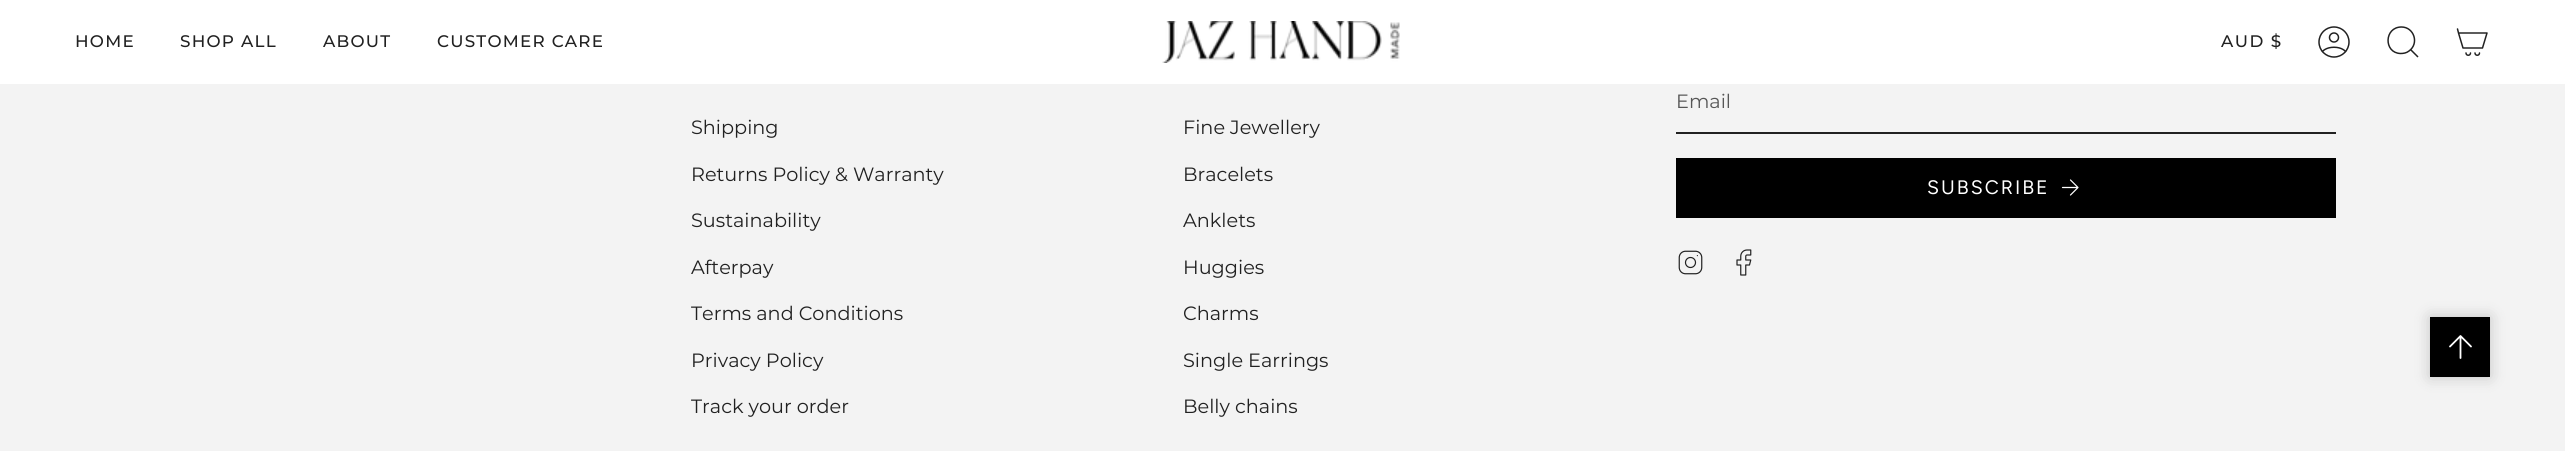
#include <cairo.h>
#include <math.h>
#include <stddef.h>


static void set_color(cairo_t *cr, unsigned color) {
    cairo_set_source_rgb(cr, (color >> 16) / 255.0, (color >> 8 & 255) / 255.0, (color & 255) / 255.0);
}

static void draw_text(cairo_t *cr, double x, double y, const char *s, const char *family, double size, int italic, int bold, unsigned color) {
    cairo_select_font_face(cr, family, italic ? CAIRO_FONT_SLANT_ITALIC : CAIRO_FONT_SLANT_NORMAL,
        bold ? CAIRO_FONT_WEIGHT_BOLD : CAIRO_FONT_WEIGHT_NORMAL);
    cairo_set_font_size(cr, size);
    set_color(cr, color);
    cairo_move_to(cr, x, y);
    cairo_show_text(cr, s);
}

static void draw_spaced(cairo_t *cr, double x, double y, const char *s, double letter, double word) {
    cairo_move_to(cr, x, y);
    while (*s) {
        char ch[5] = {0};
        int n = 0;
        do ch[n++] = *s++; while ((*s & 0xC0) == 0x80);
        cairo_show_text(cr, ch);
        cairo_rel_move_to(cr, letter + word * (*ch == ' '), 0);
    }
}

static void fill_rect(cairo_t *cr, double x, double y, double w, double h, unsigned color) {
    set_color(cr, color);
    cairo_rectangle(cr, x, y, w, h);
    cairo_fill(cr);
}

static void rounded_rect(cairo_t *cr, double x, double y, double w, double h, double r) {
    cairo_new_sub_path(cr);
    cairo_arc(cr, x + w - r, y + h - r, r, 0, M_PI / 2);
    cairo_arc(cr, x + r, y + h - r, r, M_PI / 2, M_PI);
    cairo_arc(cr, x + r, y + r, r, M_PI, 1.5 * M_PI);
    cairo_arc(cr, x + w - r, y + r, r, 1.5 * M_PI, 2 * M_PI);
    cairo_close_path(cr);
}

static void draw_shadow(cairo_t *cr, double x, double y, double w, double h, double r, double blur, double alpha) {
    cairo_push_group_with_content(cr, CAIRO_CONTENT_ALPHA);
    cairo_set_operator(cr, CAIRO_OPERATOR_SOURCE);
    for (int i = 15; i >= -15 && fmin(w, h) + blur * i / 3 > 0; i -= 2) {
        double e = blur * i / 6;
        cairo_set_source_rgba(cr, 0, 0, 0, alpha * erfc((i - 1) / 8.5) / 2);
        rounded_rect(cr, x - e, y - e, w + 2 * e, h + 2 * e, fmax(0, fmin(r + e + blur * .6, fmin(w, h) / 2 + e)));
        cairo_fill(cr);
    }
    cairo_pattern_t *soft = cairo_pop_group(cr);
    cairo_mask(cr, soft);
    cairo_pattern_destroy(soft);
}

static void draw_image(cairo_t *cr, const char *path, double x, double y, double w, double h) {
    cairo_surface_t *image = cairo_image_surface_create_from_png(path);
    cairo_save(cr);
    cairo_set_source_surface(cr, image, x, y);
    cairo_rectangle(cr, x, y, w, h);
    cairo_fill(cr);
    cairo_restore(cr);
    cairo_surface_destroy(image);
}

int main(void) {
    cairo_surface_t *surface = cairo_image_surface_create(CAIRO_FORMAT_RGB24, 2565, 451);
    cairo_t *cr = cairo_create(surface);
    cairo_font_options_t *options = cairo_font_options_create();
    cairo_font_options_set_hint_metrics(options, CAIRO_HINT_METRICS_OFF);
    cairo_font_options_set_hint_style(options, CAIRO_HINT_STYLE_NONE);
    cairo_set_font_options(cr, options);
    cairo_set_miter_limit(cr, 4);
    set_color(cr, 0xF3F3F3);
    cairo_paint(cr);
    fill_rect(cr, 0, 0, 2565, 84, 0xFFFFFF);
    cairo_select_font_face(cr, "Montserrat Medium", CAIRO_FONT_SLANT_NORMAL, CAIRO_FONT_WEIGHT_NORMAL);
    cairo_set_font_size(cr, 16.75);
    set_color(cr, 0x212121);
    draw_spaced(cr, 75, 47, "HOME", 1.25, 0);
    draw_spaced(cr, 180, 47, "SHOP ALL", 1.25, 0);
    draw_spaced(cr, 323, 47, "ABOUT", 1.25, 0);
    draw_spaced(cr, 437, 47, "CUSTOMER CARE", 1.25, 0);
    draw_image(cr, "assets/img1.png", 1162, 21, 238, 42);
    draw_spaced(cr, 2221, 47, "AUD $", 1.5, 0);
    draw_image(cr, "assets/img2.png", 2318, 26, 32, 32);
    cairo_new_path(cr);
    cairo_move_to(cr, 2401.5, 27);
    cairo_curve_to(cr, 2414, 27, 2419.5, 43.5, 2409, 51);
    cairo_curve_to(cr, 2406.5, 53, 2403.5, 53.5, 2400.5, 53.5);
    cairo_curve_to(cr, 2383.5, 53, 2384, 27, 2401.5, 27);
    cairo_close_path(cr);
    cairo_move_to(cr, 2410.5, 49.5);
    cairo_line_to(cr, 2418, 57);
    cairo_set_line_width(cr, 1.5);
    cairo_stroke(cr);
    cairo_new_path(cr);
    cairo_move_to(cr, 2458.5, 33);
    cairo_line_to(cr, 2487, 33);
    cairo_line_to(cr, 2482.5, 48);
    cairo_line_to(cr, 2463, 48);
    cairo_close_path(cr);
    cairo_move_to(cr, 2458.5, 33);
    cairo_line_to(cr, 2457.5, 29);
    cairo_move_to(cr, 2470.5, 53);
    cairo_curve_to(cr, 2470.5, 56, 2466, 56, 2466, 53);
    cairo_move_to(cr, 2479.5, 53);
    cairo_curve_to(cr, 2479.5, 56, 2475, 56, 2475, 53);
    cairo_set_line_cap(cr, CAIRO_LINE_CAP_ROUND);
    cairo_set_line_join(cr, CAIRO_LINE_JOIN_ROUND);
    cairo_stroke(cr);
    draw_text(cr, 691, 134, "Shipping", "Montserrat", 19.25, 0, 0, 0x212121);
    draw_text(cr, 691, 181, "Returns Policy & Warranty", "Montserrat", 19.25, 0, 0, 0x212121);
    draw_text(cr, 691, 227, "Sustainability", "Montserrat", 19.25, 0, 0, 0x212121);
    draw_text(cr, 691, 274, "Afterpay", "Montserrat", 19.25, 0, 0, 0x212121);
    draw_text(cr, 691, 320, "Terms and Conditions", "Montserrat", 19.25, 0, 0, 0x212121);
    draw_text(cr, 691, 367, "Privacy Policy", "Montserrat", 19.25, 0, 0, 0x212121);
    draw_text(cr, 691, 413, "Track your order", "Montserrat", 19.25, 0, 0, 0x212121);
    draw_text(cr, 1183, 134, "Fine Jewellery", "Montserrat", 19.25, 0, 0, 0x212121);
    draw_text(cr, 1183, 181, "Bracelets", "Montserrat", 19.25, 0, 0, 0x212121);
    draw_text(cr, 1183, 227, "Anklets", "Montserrat", 19.25, 0, 0, 0x212121);
    draw_text(cr, 1183, 274, "Huggies", "Montserrat", 19.25, 0, 0, 0x212121);
    draw_text(cr, 1183, 320, "Charms", "Montserrat", 19.25, 0, 0, 0x212121);
    draw_text(cr, 1183, 367, "Single Earrings", "Montserrat", 19.25, 0, 0, 0x212121);
    draw_text(cr, 1183, 413, "Belly chains", "Montserrat", 19.25, 0, 0, 0x212121);
    fill_rect(cr, 1676, 132, 660, 2, 0x212121);
    draw_text(cr, 1676, 108, "Email", "Montserrat", 19.25, 0, 0, 0x565656);
    fill_rect(cr, 1676, 158, 660, 60, 0x000000);
    cairo_select_font_face(cr, "Figtree", CAIRO_FONT_SLANT_NORMAL, CAIRO_FONT_WEIGHT_NORMAL);
    cairo_set_font_size(cr, 19.5);
    set_color(cr, 0xFFFFFF);
    draw_spaced(cr, 1927, 194, "SUBSCRIBE", 2, 0);
    cairo_new_path(cr);
    cairo_move_to(cr, 2062.5, 187.5);
    cairo_line_to(cr, 2078, 187.5);
    cairo_move_to(cr, 2078, 187.5);
    cairo_line_to(cr, 2070.5, 180);
    cairo_move_to(cr, 2078, 187.5);
    cairo_line_to(cr, 2070.5, 195);
    cairo_set_line_width(cr, 1.2);
    cairo_stroke(cr);
    draw_image(cr, "assets/img3.png", 1678, 250, 25, 25);
    draw_image(cr, "assets/img4.png", 1736, 249, 16, 27);
    set_color(cr, 0x000000);
    draw_shadow(cr, 2430, 317, 60, 60, 0, 7.5, 0.2);
    fill_rect(cr, 2430, 317, 60, 60, 0x000000);
    cairo_new_path(cr);
    cairo_move_to(cr, 2460.5, 358);
    cairo_line_to(cr, 2460.5, 336);
    cairo_move_to(cr, 2460.5, 336);
    cairo_line_to(cr, 2471, 346.5);
    cairo_move_to(cr, 2460.5, 336);
    cairo_line_to(cr, 2450, 346.5);
    set_color(cr, 0xFFFFFF);
    cairo_set_line_width(cr, 1.8);
    cairo_stroke(cr);
    cairo_surface_write_to_png(surface, "output.png");
    cairo_font_options_destroy(options);
    cairo_destroy(cr);
    cairo_surface_destroy(surface);
    return 0;
}
